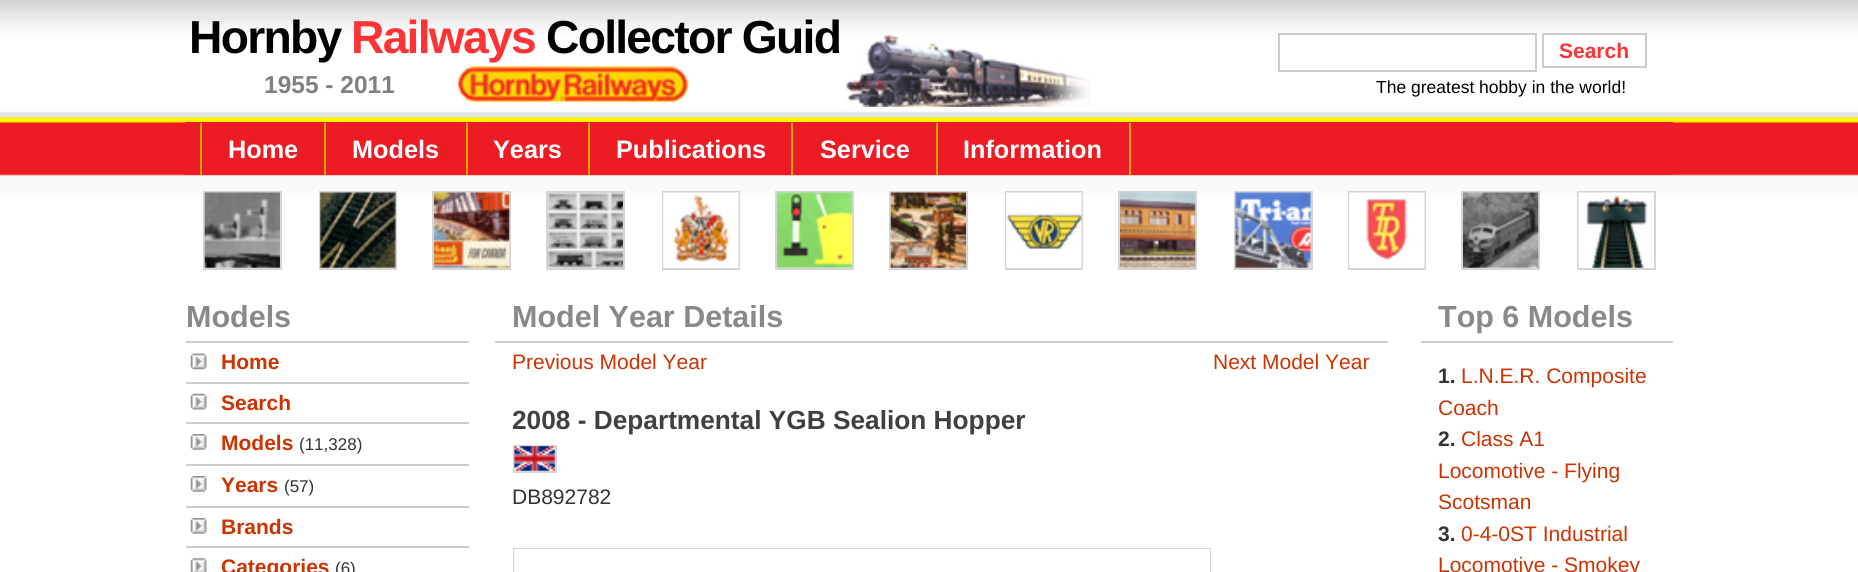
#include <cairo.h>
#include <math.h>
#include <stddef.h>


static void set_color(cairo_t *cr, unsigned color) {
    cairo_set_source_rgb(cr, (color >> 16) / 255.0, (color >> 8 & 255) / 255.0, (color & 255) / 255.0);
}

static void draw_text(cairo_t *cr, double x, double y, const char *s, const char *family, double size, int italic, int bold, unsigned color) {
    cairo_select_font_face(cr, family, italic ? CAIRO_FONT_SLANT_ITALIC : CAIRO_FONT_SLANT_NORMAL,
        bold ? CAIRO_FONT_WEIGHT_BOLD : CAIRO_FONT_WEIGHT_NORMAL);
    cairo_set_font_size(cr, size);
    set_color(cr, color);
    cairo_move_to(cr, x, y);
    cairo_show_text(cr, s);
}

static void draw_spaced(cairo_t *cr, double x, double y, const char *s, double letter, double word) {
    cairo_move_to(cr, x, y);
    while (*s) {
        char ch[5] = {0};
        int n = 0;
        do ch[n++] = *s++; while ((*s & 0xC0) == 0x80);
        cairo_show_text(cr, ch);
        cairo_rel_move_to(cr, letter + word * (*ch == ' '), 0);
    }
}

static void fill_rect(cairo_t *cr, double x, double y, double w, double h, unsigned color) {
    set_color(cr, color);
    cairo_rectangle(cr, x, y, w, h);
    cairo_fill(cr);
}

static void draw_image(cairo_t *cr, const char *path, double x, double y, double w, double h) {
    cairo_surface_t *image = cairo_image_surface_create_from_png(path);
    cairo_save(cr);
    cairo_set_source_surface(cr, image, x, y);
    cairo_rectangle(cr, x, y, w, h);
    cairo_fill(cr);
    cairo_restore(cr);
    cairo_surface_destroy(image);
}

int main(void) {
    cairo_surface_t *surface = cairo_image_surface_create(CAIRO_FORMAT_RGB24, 1858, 572);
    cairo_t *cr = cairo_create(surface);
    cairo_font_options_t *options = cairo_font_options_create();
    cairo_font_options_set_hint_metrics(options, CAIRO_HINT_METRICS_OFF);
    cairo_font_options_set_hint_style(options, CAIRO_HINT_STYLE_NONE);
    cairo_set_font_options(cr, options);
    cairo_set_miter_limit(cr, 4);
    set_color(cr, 0xFFFFFF);
    cairo_paint(cr);
    draw_image(cr, "assets/img1.png", 0, 0, 1858, 195);
    cairo_select_font_face(cr, "Liberation Sans", CAIRO_FONT_SLANT_NORMAL, CAIRO_FONT_WEIGHT_BOLD);
    cairo_set_font_size(cr, 46.25);
    set_color(cr, 0x000000);
    draw_spaced(cr, 189, 53, "Hornby", -1.75, 0);
    set_color(cr, 0xFF3333);
    draw_spaced(cr, 351, 53, "Railways", -1.75, 0);
    set_color(cr, 0x000000);
    draw_spaced(cr, 546, 53, "Collector Guid", -1.75, 0);
    draw_image(cr, "assets/img2.png", 841, 35, 249, 72);
    fill_rect(cr, 1280, 35, 255, 1, 0xFFFFFF);
    cairo_rectangle(cr, 1279, 34, 257, 37);
    set_color(cr, 0xCCCCCC);
    cairo_stroke(cr);
    fill_rect(cr, 1544, 35, 101, 1, 0xFFFFFF);
    cairo_rectangle(cr, 1543, 34, 103, 33);
    set_color(cr, 0xCCCCCC);
    cairo_stroke(cr);
    draw_text(cr, 1559, 58, "Search", "Liberation Sans", 21, 0, 1, 0xFF3333);
    draw_text(cr, 264, 93, "1955 - 2011", "Liberation Sans", 24.5, 0, 1, 0x808080);
    draw_image(cr, "assets/img3.png", 456, 64, 234, 40);
    draw_text(cr, 1376, 93, "The greatest hobby in the world!", "Liberation Sans", 17.5, 0, 0, 0x000000);
    fill_rect(cr, 185, 122, 1488, 53, 0xED1C24);
    fill_rect(cr, 324, 123, 2, 52, 0xFFA500);
    fill_rect(cr, 200, 123, 2, 52, 0xFFA500);
    draw_text(cr, 228, 158, "Home", "Liberation Sans", 25.25, 0, 1, 0xFFFFFF);
    fill_rect(cr, 466, 123, 2, 52, 0xFFA500);
    draw_text(cr, 352, 158, "Models", "Liberation Sans", 25.25, 0, 1, 0xFFFFFF);
    fill_rect(cr, 588, 123, 2, 52, 0xFFA500);
    draw_text(cr, 493, 158, "Years", "Liberation Sans", 25.25, 0, 1, 0xFFFFFF);
    fill_rect(cr, 791, 123, 2, 52, 0xFFA500);
    draw_text(cr, 616, 158, "Publications", "Liberation Sans", 25.25, 0, 1, 0xFFFFFF);
    fill_rect(cr, 936, 123, 2, 52, 0xFFA500);
    draw_text(cr, 820, 158, "Service", "Liberation Sans", 25.25, 0, 1, 0xFFFFFF);
    fill_rect(cr, 1129, 123, 2, 52, 0xFFA500);
    draw_text(cr, 963, 158, "Information", "Liberation Sans", 25.25, 0, 1, 0xFFFFFF);
    cairo_rectangle(cr, 204, 192, 77, 77);
    set_color(cr, 0xD5D5D5);
    cairo_stroke(cr);
    draw_image(cr, "assets/img4.png", 204, 192, 76, 76);
    cairo_rectangle(cr, 320, 192, 76, 77);
    cairo_stroke(cr);
    draw_image(cr, "assets/img5.png", 320, 192, 76, 76);
    cairo_rectangle(cr, 433, 192, 77, 77);
    cairo_stroke(cr);
    draw_image(cr, "assets/img6.png", 434, 192, 76, 76);
    cairo_rectangle(cr, 547, 192, 77, 77);
    cairo_stroke(cr);
    draw_image(cr, "assets/img7.png", 547, 192, 76, 76);
    cairo_rectangle(cr, 663, 192, 76, 77);
    cairo_stroke(cr);
    draw_image(cr, "assets/img8.png", 663, 192, 76, 76);
    cairo_rectangle(cr, 776, 192, 77, 77);
    cairo_stroke(cr);
    draw_image(cr, "assets/img9.png", 777, 192, 76, 76);
    cairo_rectangle(cr, 890, 192, 77, 77);
    cairo_stroke(cr);
    draw_image(cr, "assets/img10.png", 890, 192, 76, 76);
    cairo_rectangle(cr, 1006, 192, 76, 77);
    cairo_stroke(cr);
    draw_image(cr, "assets/img11.png", 1006, 192, 76, 76);
    cairo_rectangle(cr, 1119, 192, 77, 77);
    cairo_stroke(cr);
    draw_image(cr, "assets/img12.png", 1120, 192, 76, 76);
    cairo_rectangle(cr, 1235, 192, 77, 77);
    cairo_stroke(cr);
    draw_image(cr, "assets/img13.png", 1235, 192, 76, 76);
    cairo_rectangle(cr, 1349, 192, 76, 77);
    cairo_stroke(cr);
    draw_image(cr, "assets/img14.png", 1349, 192, 76, 76);
    cairo_rectangle(cr, 1462, 192, 77, 77);
    cairo_stroke(cr);
    draw_image(cr, "assets/img15.png", 1463, 192, 76, 76);
    cairo_rectangle(cr, 1578, 192, 77, 77);
    cairo_stroke(cr);
    draw_image(cr, "assets/img16.png", 1578, 192, 76, 76);
    fill_rect(cr, 186, 341, 283, 2, 0xCECECE);
    draw_text(cr, 186, 327, "Models", "Liberation Sans", 30.5, 0, 1, 0x898989);
    draw_image(cr, "assets/img17.png", 190, 353, 17, 17);
    fill_rect(cr, 186, 382, 283, 2, 0xCECECE);
    draw_text(cr, 221, 369, "Home", "Liberation Sans", 21, 0, 1, 0xCC3300);
    draw_image(cr, "assets/img18.png", 190, 393, 17, 17);
    fill_rect(cr, 186, 422, 283, 2, 0xCECECE);
    draw_text(cr, 221, 410, "Search", "Liberation Sans", 21, 0, 1, 0xCC3300);
    draw_image(cr, "assets/img19.png", 190, 434, 17, 16);
    fill_rect(cr, 186, 464, 283, 2, 0xCECECE);
    draw_text(cr, 221, 450, "Models", "Liberation Sans", 21, 0, 1, 0xCC3300);
    draw_text(cr, 299, 450, "(11,328)", "Liberation Sans", 17, 0, 0, 0x333333);
    draw_image(cr, "assets/img19.png", 190, 476, 17, 16);
    fill_rect(cr, 186, 506, 283, 2, 0xCECECE);
    draw_text(cr, 221, 492, "Years", "Liberation Sans", 21, 0, 1, 0xCC3300);
    draw_text(cr, 284, 492, "(57)", "Liberation Sans", 17, 0, 0, 0x333333);
    draw_image(cr, "assets/img19.png", 190, 518, 17, 16);
    fill_rect(cr, 186, 546, 283, 2, 0xCECECE);
    draw_text(cr, 221, 534, "Brands", "Liberation Sans", 21, 0, 1, 0xCC3300);
    draw_image(cr, "assets/img20.png", 190, 558, 17, 14);
    draw_text(cr, 221, 574, "Categories", "Liberation Sans", 21, 0, 1, 0xCC3300);
    draw_text(cr, 335, 574, "(6)", "Liberation Sans", 17, 0, 0, 0x333333);
    fill_rect(cr, 495, 341, 893, 2, 0xCECECE);
    draw_text(cr, 512, 327, "Model Year Details", "Liberation Sans", 30.5, 0, 1, 0x898989);
    draw_text(cr, 512, 369, "Previous Model Year", "Liberation Sans", 21, 0, 0, 0xCC3300);
    draw_text(cr, 1213, 369, "Next Model Year", "Liberation Sans", 21, 0, 0, 0xCC3300);
    draw_text(cr, 512, 429, "2008 - Departmental YGB Sealion Hopper", "Liberation Sans", 26.25, 0, 1, 0x404040);
    cairo_rectangle(cr, 514, 446, 42, 26);
    set_color(cr, 0xD5D5D5);
    cairo_stroke(cr);
    draw_image(cr, "assets/img21.png", 514, 446, 41, 25);
    draw_text(cr, 512, 504, "DB892782", "Liberation Sans", 21, 0, 0, 0x333333);
    cairo_rectangle(cr, 514, 549, 696, 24);
    set_color(cr, 0xD5D5D5);
    cairo_stroke(cr);
    fill_rect(cr, 514, 549, 696, 23, 0xFFFFFF);
    fill_rect(cr, 1421, 341, 252, 2, 0xCECECE);
    draw_text(cr, 1438, 327, "Top 6 Models", "Liberation Sans", 30.5, 0, 1, 0x898989);
    draw_text(cr, 1438, 383, "1.", "Liberation Sans", 21, 0, 1, 0x333333);
    draw_text(cr, 1461, 383, "L.N.E.R. Composite", "Liberation Sans", 21, 0, 0, 0xCC3300);
    draw_text(cr, 1438, 415, "Coach", "Liberation Sans", 21, 0, 0, 0xCC3300);
    draw_text(cr, 1438, 446, "2.", "Liberation Sans", 21, 0, 1, 0x333333);
    draw_text(cr, 1461, 446, "Class A1", "Liberation Sans", 21, 0, 0, 0xCC3300);
    draw_text(cr, 1438, 478, "Locomotive - Flying", "Liberation Sans", 21, 0, 0, 0xCC3300);
    draw_text(cr, 1438, 509, "Scotsman", "Liberation Sans", 21, 0, 0, 0xCC3300);
    draw_text(cr, 1438, 541, "3.", "Liberation Sans", 21, 0, 1, 0x333333);
    draw_text(cr, 1461, 541, "0-4-0ST Industrial", "Liberation Sans", 21, 0, 0, 0xCC3300);
    draw_text(cr, 1438, 572, "Locomotive - Smokey", "Liberation Sans", 21, 0, 0, 0xCC3300);
    cairo_surface_write_to_png(surface, "output.png");
    cairo_font_options_destroy(options);
    cairo_destroy(cr);
    cairo_surface_destroy(surface);
    return 0;
}
